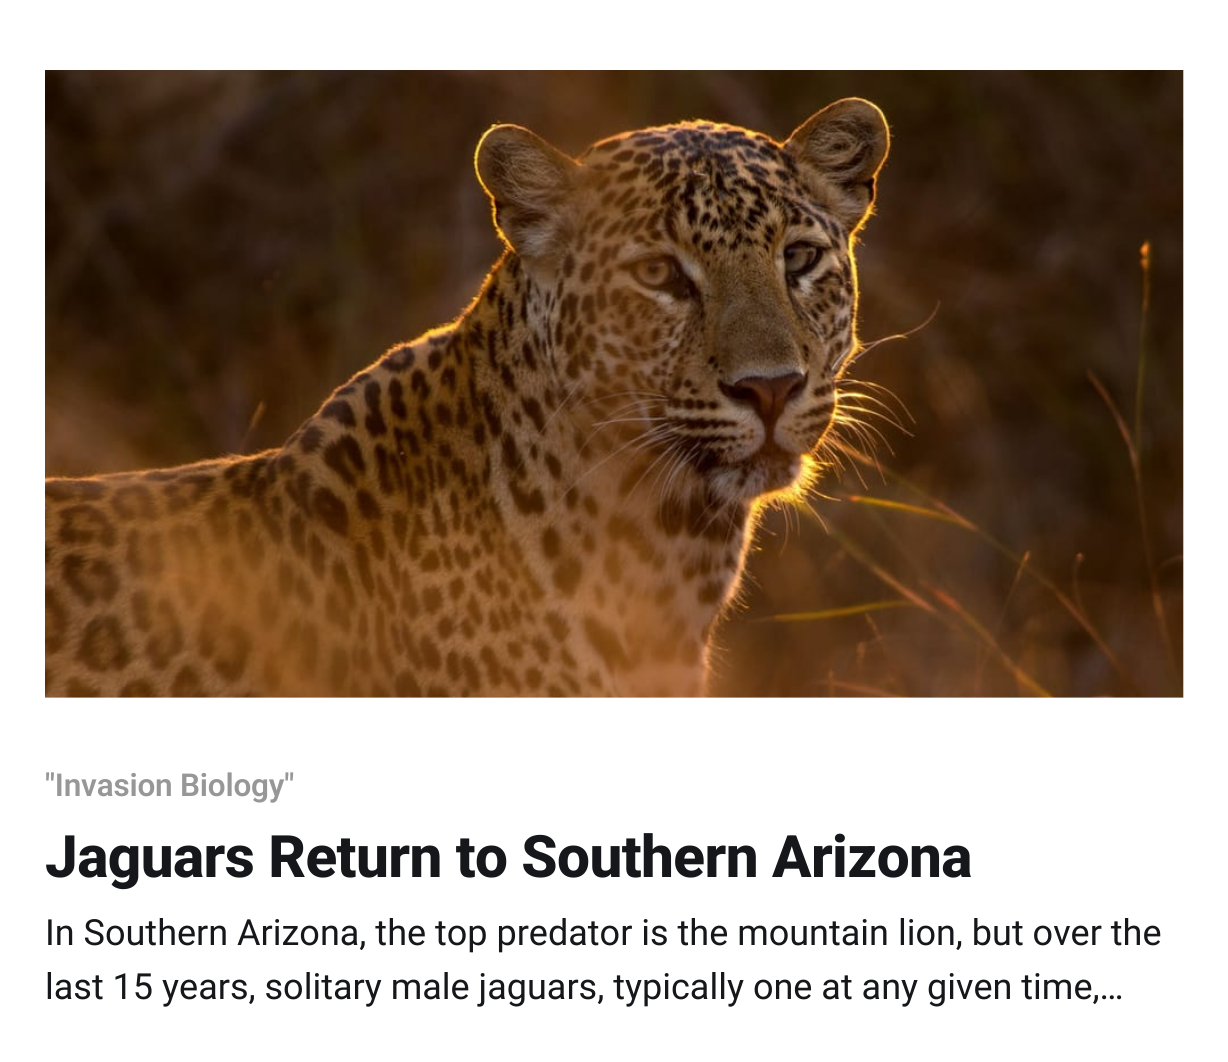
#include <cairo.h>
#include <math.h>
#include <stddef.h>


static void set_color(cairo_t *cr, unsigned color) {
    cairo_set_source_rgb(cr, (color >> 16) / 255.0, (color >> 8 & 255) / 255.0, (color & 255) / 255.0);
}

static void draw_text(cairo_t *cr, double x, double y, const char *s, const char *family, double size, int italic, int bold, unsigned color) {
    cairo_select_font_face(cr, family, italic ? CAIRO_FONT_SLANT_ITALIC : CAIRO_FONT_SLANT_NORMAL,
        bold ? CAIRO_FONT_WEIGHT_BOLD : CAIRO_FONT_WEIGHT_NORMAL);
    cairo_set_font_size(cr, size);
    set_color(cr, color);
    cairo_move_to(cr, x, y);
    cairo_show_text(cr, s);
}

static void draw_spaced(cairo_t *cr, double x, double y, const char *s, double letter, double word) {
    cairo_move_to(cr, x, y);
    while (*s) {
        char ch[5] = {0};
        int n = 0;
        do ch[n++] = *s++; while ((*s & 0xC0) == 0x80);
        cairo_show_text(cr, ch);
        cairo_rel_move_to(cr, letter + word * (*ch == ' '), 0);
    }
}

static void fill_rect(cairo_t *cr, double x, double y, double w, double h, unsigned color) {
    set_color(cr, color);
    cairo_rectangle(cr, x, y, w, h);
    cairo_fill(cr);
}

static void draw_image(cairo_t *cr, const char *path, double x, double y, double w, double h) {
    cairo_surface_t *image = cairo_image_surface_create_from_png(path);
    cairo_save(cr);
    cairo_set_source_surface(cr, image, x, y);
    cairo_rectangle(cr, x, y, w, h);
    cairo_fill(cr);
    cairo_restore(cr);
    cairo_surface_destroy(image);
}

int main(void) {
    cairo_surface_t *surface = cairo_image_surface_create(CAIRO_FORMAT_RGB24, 1228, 1062);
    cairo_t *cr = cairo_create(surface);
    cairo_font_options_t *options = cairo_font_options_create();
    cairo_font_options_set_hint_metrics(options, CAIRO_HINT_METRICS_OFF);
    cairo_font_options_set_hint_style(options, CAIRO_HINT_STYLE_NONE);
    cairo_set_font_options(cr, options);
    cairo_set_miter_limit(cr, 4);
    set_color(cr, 0xFFFFFF);
    cairo_paint(cr);
    fill_rect(cr, 45, 70, 1139, 628, 0xF1F1F1);
    draw_image(cr, "assets/img1.png", 45, 70, 1139, 628);
    cairo_select_font_face(cr, "Roboto SemiBold", CAIRO_FONT_SLANT_NORMAL, CAIRO_FONT_WEIGHT_NORMAL);
    cairo_set_font_size(cr, 31.5);
    set_color(cr, 0x979797);
    draw_spaced(cr, 45, 796, "\"Invasion Biology\"", -0.2, 0);
    cairo_select_font_face(cr, "Roboto ExtraBold", CAIRO_FONT_SLANT_NORMAL, CAIRO_FONT_WEIGHT_NORMAL);
    cairo_set_font_size(cr, 58.5);
    set_color(cr, 0x15171A);
    draw_spaced(cr, 45, 877, "Jaguars Return to Southern Arizona", -0.6, 0);
    draw_text(cr, 45, 945, "In Southern Arizona, the top predator is the mountain lion, but over the", "Roboto", 36, 0, 0, 0x15171A);
    draw_text(cr, 45, 999, "last 15 years, solitary male jaguars, typically one at any given time,…", "Roboto", 36, 0, 0, 0x15171A);
    cairo_surface_write_to_png(surface, "output.png");
    cairo_font_options_destroy(options);
    cairo_destroy(cr);
    cairo_surface_destroy(surface);
    return 0;
}
